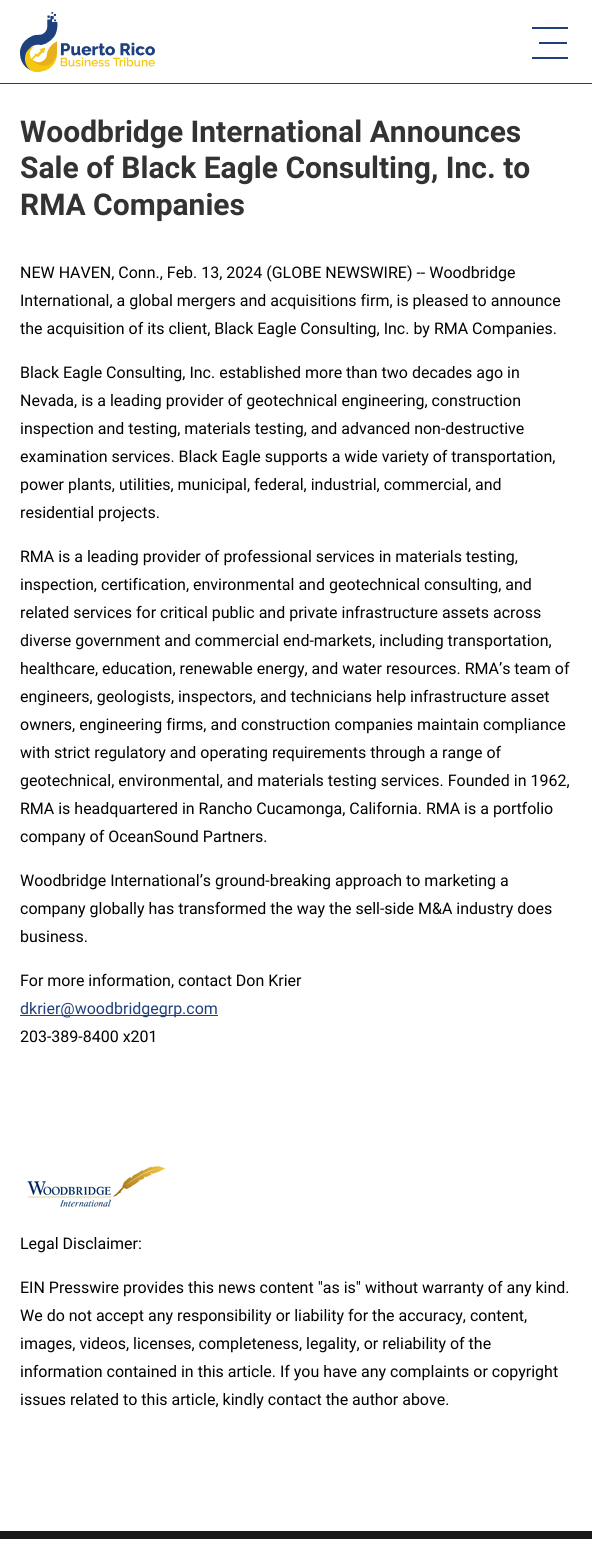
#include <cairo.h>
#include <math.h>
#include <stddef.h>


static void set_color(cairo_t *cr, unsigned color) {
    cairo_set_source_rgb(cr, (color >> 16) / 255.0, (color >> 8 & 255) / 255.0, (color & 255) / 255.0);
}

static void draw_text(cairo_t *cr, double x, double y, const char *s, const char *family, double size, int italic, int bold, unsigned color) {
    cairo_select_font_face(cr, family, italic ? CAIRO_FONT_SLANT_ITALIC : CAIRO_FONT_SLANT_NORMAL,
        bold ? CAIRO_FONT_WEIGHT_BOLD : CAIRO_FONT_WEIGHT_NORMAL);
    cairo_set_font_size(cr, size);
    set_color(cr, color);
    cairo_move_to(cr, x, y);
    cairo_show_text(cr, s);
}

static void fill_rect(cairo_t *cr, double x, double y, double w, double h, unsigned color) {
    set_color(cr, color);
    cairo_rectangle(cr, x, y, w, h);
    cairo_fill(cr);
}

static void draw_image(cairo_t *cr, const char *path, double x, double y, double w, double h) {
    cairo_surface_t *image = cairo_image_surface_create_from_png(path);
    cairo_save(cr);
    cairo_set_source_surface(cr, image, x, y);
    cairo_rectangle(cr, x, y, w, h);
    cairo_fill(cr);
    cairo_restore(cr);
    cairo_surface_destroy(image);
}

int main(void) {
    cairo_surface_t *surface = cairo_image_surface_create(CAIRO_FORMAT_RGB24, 592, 1548);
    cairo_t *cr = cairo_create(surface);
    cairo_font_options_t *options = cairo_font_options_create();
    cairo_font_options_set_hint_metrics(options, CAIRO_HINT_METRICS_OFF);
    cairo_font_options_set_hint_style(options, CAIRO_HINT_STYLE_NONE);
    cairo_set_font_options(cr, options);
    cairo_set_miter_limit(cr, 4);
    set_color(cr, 0xFFFFFF);
    cairo_paint(cr);
    draw_image(cr, "assets/img1.png", 20, 12, 135, 60);
    fill_rect(cr, 532, 27, 36, 2, 0x1E407C);
    fill_rect(cr, 539, 42, 28, 2, 0x1E407C);
    fill_rect(cr, 532, 57, 36, 2, 0x1E407C);
    fill_rect(cr, 0, 83, 592, 1, 0x1E407C);
    draw_text(cr, 20, 142, "Woodbridge International Announces", "Roboto", 30, 0, 1, 0x333333);
    draw_text(cr, 20, 178, "Sale of Black Eagle Consulting, Inc. to", "Roboto", 30, 0, 1, 0x333333);
    draw_text(cr, 20, 215, "RMA Companies", "Roboto", 30, 0, 1, 0x333333);
    draw_text(cr, 20, 278, "NEW HAVEN, Conn., Feb. 13, 2024 (GLOBE NEWSWIRE) -- Woodbridge", "Roboto", 16, 0, 0, 0x000000);
    draw_text(cr, 20, 306, "International, a global mergers and acquisitions firm, is pleased to announce", "Roboto", 16, 0, 0, 0x000000);
    draw_text(cr, 20, 334, "the acquisition of its client, Black Eagle Consulting, Inc. by RMA Companies.", "Roboto", 16, 0, 0, 0x000000);
    draw_text(cr, 20, 378, "Black Eagle Consulting, Inc. established more than two decades ago in", "Roboto", 16, 0, 0, 0x000000);
    draw_text(cr, 20, 406, "Nevada, is a leading provider of geotechnical engineering, construction", "Roboto", 16, 0, 0, 0x000000);
    draw_text(cr, 20, 434, "inspection and testing, materials testing, and advanced non-destructive", "Roboto", 16, 0, 0, 0x000000);
    draw_text(cr, 20, 462, "examination services. Black Eagle supports a wide variety of transportation,", "Roboto", 16, 0, 0, 0x000000);
    draw_text(cr, 20, 490, "power plants, utilities, municipal, federal, industrial, commercial, and", "Roboto", 16, 0, 0, 0x000000);
    draw_text(cr, 20, 518, "residential projects.", "Roboto", 16, 0, 0, 0x000000);
    draw_text(cr, 20, 562, "RMA is a leading provider of professional services in materials testing,", "Roboto", 16, 0, 0, 0x000000);
    draw_text(cr, 20, 590, "inspection, certification, environmental and geotechnical consulting, and", "Roboto", 16, 0, 0, 0x000000);
    draw_text(cr, 20, 618, "related services for critical public and private infrastructure assets across", "Roboto", 16, 0, 0, 0x000000);
    draw_text(cr, 20, 646, "diverse government and commercial end-markets, including transportation,", "Roboto", 16, 0, 0, 0x000000);
    draw_text(cr, 20, 674, "healthcare, education, renewable energy, and water resources. RMA’s team of", "Roboto", 16, 0, 0, 0x000000);
    draw_text(cr, 20, 702, "engineers, geologists, inspectors, and technicians help infrastructure asset", "Roboto", 16, 0, 0, 0x000000);
    draw_text(cr, 20, 730, "owners, engineering firms, and construction companies maintain compliance", "Roboto", 16, 0, 0, 0x000000);
    draw_text(cr, 20, 758, "with strict regulatory and operating requirements through a range of", "Roboto", 16, 0, 0, 0x000000);
    draw_text(cr, 20, 786, "geotechnical, environmental, and materials testing services. Founded in 1962,", "Roboto", 16, 0, 0, 0x000000);
    draw_text(cr, 20, 814, "RMA is headquartered in Rancho Cucamonga, California. RMA is a portfolio", "Roboto", 16, 0, 0, 0x000000);
    draw_text(cr, 20, 842, "company of OceanSound Partners.", "Roboto", 16, 0, 0, 0x000000);
    draw_text(cr, 20, 886, "Woodbridge International’s ground-breaking approach to marketing a", "Roboto", 16, 0, 0, 0x000000);
    draw_text(cr, 20, 914, "company globally has transformed the way the sell-side M&A industry does", "Roboto", 16, 0, 0, 0x000000);
    draw_text(cr, 20, 942, "business.", "Roboto", 16, 0, 0, 0x000000);
    draw_text(cr, 20, 986, "For more information, contact Don Krier", "Roboto", 16, 0, 0, 0x000000);
    fill_rect(cr, 20, 1015, 198, 1, 0x1E407C);
    draw_text(cr, 20, 1014, "dkrier@woodbridgegrp.com", "Roboto", 16, 0, 0, 0x1E407C);
    draw_text(cr, 20, 1042, "203-389-8400 x201", "Roboto", 16, 0, 0, 0x000000);
    draw_image(cr, "assets/img2.png", 27, 1166, 139, 41);
    draw_text(cr, 20, 1249, "Legal Disclaimer:", "Roboto", 16, 0, 0, 0x000000);
    draw_text(cr, 20, 1293, "EIN Presswire provides this news content \"as is\" without warranty of any kind.", "Roboto", 16, 0, 0, 0x000000);
    draw_text(cr, 20, 1321, "We do not accept any responsibility or liability for the accuracy, content,", "Roboto", 16, 0, 0, 0x000000);
    draw_text(cr, 20, 1349, "images, videos, licenses, completeness, legality, or reliability of the", "Roboto", 16, 0, 0, 0x000000);
    draw_text(cr, 20, 1377, "information contained in this article. If you have any complaints or copyright", "Roboto", 16, 0, 0, 0x000000);
    draw_text(cr, 20, 1405, "issues related to this article, kindly contact the author above.", "Roboto", 16, 0, 0, 0x000000);
    fill_rect(cr, 0, 1531, 592, 8, 0x191919);
    cairo_surface_write_to_png(surface, "output.png");
    cairo_font_options_destroy(options);
    cairo_destroy(cr);
    cairo_surface_destroy(surface);
    return 0;
}
